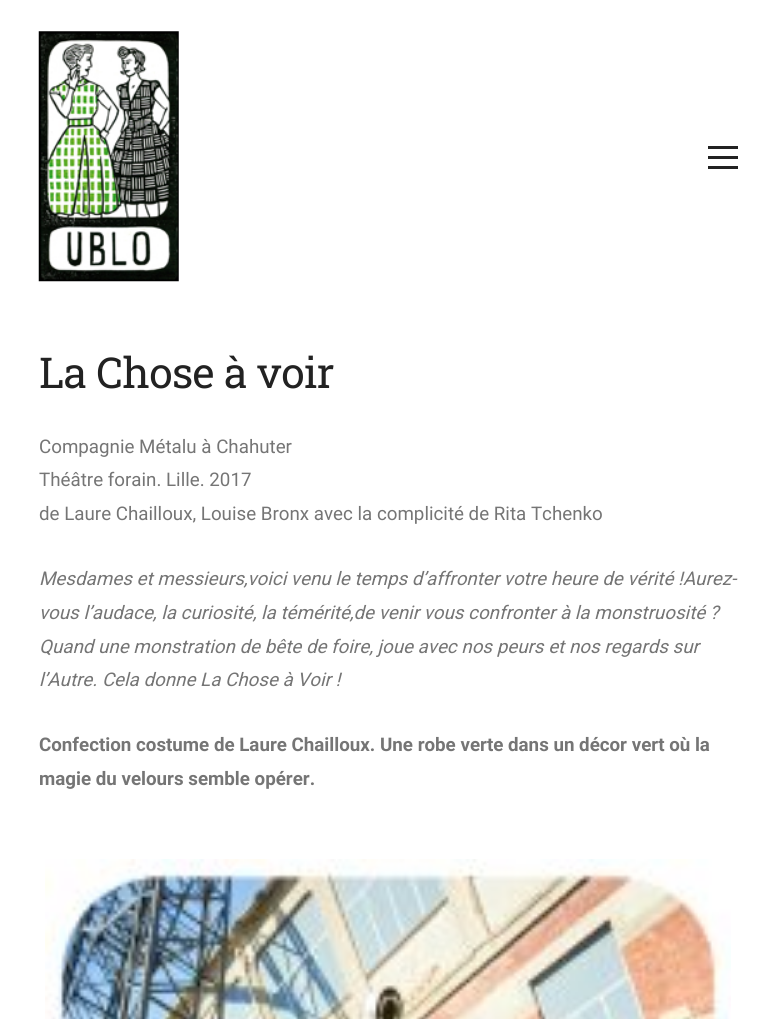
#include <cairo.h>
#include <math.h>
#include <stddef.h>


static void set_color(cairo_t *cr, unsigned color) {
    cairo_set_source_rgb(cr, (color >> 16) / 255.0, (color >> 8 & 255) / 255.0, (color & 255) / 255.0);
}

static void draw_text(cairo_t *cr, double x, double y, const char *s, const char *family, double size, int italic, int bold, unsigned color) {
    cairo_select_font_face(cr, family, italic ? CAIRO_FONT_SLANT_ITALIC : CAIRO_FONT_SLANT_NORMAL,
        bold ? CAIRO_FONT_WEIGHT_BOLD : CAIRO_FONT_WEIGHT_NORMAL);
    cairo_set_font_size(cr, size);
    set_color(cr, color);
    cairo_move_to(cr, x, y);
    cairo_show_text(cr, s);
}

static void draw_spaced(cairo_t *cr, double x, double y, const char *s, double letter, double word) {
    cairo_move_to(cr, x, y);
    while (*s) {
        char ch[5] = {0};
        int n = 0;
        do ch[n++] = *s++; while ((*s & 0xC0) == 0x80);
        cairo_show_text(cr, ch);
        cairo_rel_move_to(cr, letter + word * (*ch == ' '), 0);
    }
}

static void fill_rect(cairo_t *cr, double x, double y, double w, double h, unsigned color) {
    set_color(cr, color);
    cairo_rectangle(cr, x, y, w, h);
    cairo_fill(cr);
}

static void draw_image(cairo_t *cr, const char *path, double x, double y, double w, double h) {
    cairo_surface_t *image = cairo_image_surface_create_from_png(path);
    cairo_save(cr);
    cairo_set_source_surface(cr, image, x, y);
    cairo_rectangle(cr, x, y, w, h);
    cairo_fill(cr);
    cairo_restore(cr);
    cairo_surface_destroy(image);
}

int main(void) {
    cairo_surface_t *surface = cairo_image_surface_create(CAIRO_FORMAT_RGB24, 776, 1019);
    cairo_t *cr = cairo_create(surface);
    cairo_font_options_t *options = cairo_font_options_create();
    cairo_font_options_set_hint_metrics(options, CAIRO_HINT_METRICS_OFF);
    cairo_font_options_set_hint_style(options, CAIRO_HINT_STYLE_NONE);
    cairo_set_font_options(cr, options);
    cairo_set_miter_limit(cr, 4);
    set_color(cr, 0xFFFFFF);
    cairo_paint(cr);
    draw_image(cr, "assets/img1.png", 38, 31, 141, 251);
    fill_rect(cr, 708, 156, 30, 3, 0x222222);
    fill_rect(cr, 708, 146, 30, 3, 0x222222);
    fill_rect(cr, 708, 166, 30, 3, 0x222222);
    cairo_select_font_face(cr, "Roboto Slab", CAIRO_FONT_SLANT_NORMAL, CAIRO_FONT_WEIGHT_NORMAL);
    cairo_set_font_size(cr, 42.5);
    draw_spaced(cr, 39, 388, "La Chose à voir", -0.6, 0);
    draw_text(cr, 39, 453, "Compagnie Métalu à Chahuter", "Roboto", 18.75, 0, 0, 0x757575);
    draw_text(cr, 39, 486, "Théâtre forain. Lille. 2017", "Roboto", 18.75, 0, 0, 0x757575);
    draw_text(cr, 39, 520, "de Laure Chailloux, Louise Bronx avec la complicité de Rita Tchenko", "Roboto", 18.75, 0, 0, 0x757575);
    draw_text(cr, 39, 585, "Mesdames et messieurs,voici venu le temps d’affronter votre heure de vérité !Aurez-", "Roboto", 18.75, 1, 0, 0x757575);
    draw_text(cr, 39, 619, "vous l’audace, la curiosité, la témérité,de venir vous confronter à la monstruosité ?", "Roboto", 18.75, 1, 0, 0x757575);
    draw_text(cr, 39, 653, "Quand une monstration de bête de foire, joue avec nos peurs et nos regards sur", "Roboto", 18.75, 1, 0, 0x757575);
    draw_text(cr, 39, 686, "l’Autre. Cela donne La Chose à Voir !", "Roboto", 18.75, 1, 0, 0x757575);
    draw_text(cr, 39, 751, "Confection costume de Laure Chailloux. Une robe verte dans un décor vert où la", "Roboto", 18.75, 0, 1, 0x757575);
    draw_text(cr, 39, 785, "magie du velours semble opérer.", "Roboto", 18.75, 0, 1, 0x757575);
    draw_image(cr, "assets/img2.png", 45, 859, 686, 160);
    cairo_surface_write_to_png(surface, "output.png");
    cairo_font_options_destroy(options);
    cairo_destroy(cr);
    cairo_surface_destroy(surface);
    return 0;
}
